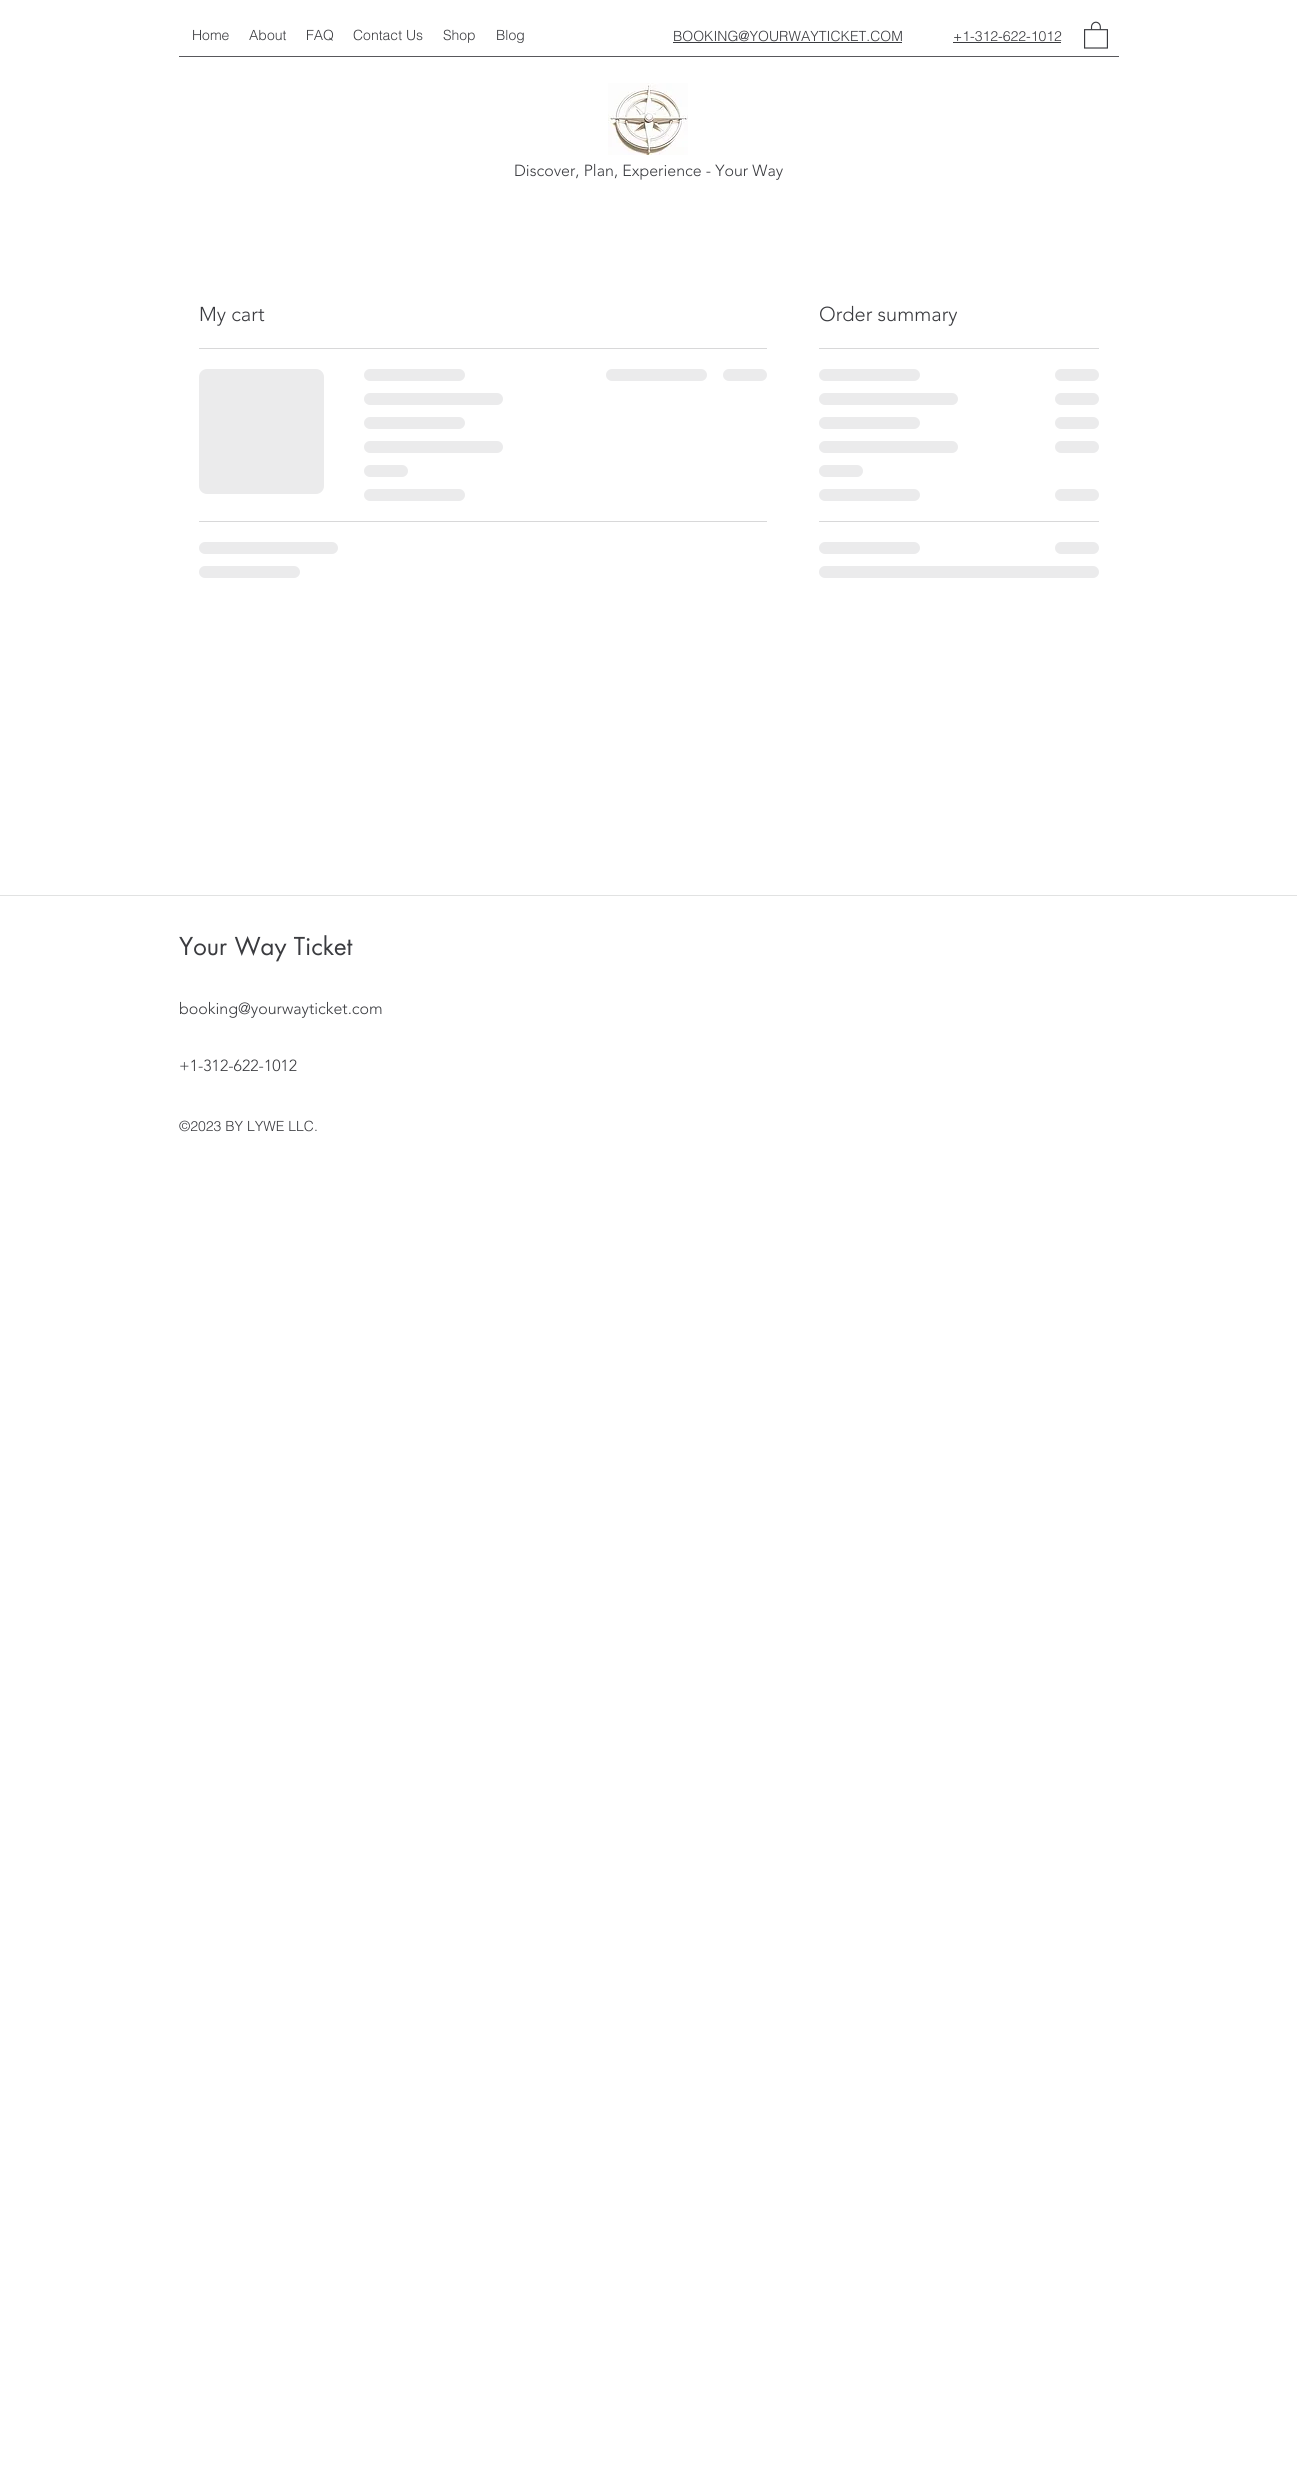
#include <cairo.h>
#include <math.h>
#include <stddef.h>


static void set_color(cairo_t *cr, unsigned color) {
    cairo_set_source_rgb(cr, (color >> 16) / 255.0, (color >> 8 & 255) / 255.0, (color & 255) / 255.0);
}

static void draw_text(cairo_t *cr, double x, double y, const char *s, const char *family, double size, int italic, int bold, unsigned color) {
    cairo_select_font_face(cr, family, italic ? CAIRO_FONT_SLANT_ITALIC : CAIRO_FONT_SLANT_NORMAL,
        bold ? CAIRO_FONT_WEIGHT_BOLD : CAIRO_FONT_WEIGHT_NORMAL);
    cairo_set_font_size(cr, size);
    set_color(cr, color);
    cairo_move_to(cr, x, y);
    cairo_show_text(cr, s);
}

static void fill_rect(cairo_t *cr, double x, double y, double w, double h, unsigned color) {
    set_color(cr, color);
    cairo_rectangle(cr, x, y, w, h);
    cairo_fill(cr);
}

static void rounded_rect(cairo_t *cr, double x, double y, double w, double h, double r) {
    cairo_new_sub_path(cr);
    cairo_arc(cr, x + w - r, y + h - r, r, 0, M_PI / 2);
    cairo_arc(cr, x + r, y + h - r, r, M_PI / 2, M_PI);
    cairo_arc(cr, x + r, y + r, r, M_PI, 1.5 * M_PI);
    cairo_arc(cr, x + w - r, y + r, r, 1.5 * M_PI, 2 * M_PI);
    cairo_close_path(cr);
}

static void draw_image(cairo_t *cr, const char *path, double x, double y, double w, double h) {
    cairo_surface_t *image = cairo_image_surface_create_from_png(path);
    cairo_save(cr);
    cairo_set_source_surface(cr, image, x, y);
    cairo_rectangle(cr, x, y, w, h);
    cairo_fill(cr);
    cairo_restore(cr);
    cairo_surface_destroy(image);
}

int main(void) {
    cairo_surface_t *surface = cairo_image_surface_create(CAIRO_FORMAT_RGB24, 1297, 2476);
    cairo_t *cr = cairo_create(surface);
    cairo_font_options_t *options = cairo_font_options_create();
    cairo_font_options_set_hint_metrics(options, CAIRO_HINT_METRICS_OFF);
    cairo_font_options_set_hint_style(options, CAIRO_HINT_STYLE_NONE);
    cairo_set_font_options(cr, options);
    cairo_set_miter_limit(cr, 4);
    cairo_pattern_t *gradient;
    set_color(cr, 0xFFFFFF);
    cairo_paint(cr);
    draw_text(cr, 192, 40, "Home", "helvetica Light", 14, 0, 0, 0x3A3B3F);
    draw_text(cr, 249, 40, "About", "helvetica Light", 14, 0, 0, 0x3A3B3F);
    draw_text(cr, 306, 40, "FAQ", "helvetica Light", 14, 0, 0, 0x3A3B3F);
    draw_text(cr, 353, 40, "Contact Us", "helvetica Light", 14, 0, 0, 0x3A3B3F);
    draw_text(cr, 443, 40, "Shop", "helvetica Light", 14, 0, 0, 0x3A3B3F);
    draw_text(cr, 496, 40, "Blog", "helvetica Light", 14, 0, 0, 0x3A3B3F);
    draw_text(cr, 673, 41, "BOOKING@YOURWAYTICKET.COM", "helvetica Light", 14, 0, 0, 0x3A3B3F);
    fill_rect(cr, 673, 42, 229, 1, 0x3A3B3F);
    draw_text(cr, 953, 41, "+1-312-622-1012", "helvetica Light", 14, 0, 0, 0x3A3B3F);
    fill_rect(cr, 953, 42, 108, 1, 0x3A3B3F);
    draw_image(cr, "assets/img1.png", 1084, 21, 24, 28);
    fill_rect(cr, 179, 56, 940, 1, 0x58585C);
    draw_image(cr, "assets/img2.png", 608, 83, 80, 72);
    draw_text(cr, 514, 176, "Discover, Plan, Experience - Your Way", "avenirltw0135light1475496 Light", 16, 0, 0, 0x3A3B3F);
    fill_rect(cr, 199, 348, 568, 1, 0xD8D8D9);
    draw_text(cr, 199, 321, "My cart", "avenirltw0135light1475496 Light", 20, 0, 0, 0x3A3B3F);
    gradient = cairo_pattern_create_linear(199, 432, 699, 432);
    cairo_pattern_add_color_stop_rgba(gradient, 0.25, 0.922, 0.922, 0.925, 1);
    cairo_pattern_add_color_stop_rgba(gradient, 0.37, 0.847, 0.847, 0.851, 1);
    cairo_pattern_add_color_stop_rgba(gradient, 0.63, 0.922, 0.922, 0.925, 1);
    cairo_set_source(cr, gradient);
    cairo_pattern_destroy(gradient);
    rounded_rect(cr, 199, 369, 125, 125, 8);
    cairo_fill(cr);
    gradient = cairo_pattern_create_linear(364, 375, 768, 375);
    cairo_pattern_add_color_stop_rgba(gradient, 0.25, 0.922, 0.922, 0.925, 1);
    cairo_pattern_add_color_stop_rgba(gradient, 0.37, 0.847, 0.847, 0.851, 1);
    cairo_pattern_add_color_stop_rgba(gradient, 0.63, 0.922, 0.922, 0.925, 1);
    cairo_set_source(cr, gradient);
    cairo_pattern_destroy(gradient);
    rounded_rect(cr, 364, 369, 101, 12, 6);
    cairo_fill(cr);
    gradient = cairo_pattern_create_linear(364, 399, 920, 399);
    cairo_pattern_add_color_stop_rgba(gradient, 0.25, 0.922, 0.922, 0.925, 1);
    cairo_pattern_add_color_stop_rgba(gradient, 0.37, 0.847, 0.847, 0.851, 1);
    cairo_pattern_add_color_stop_rgba(gradient, 0.63, 0.922, 0.922, 0.925, 1);
    cairo_set_source(cr, gradient);
    cairo_pattern_destroy(gradient);
    rounded_rect(cr, 364, 393, 139, 12, 6);
    cairo_fill(cr);
    gradient = cairo_pattern_create_linear(364, 423, 768, 423);
    cairo_pattern_add_color_stop_rgba(gradient, 0.25, 0.922, 0.922, 0.925, 1);
    cairo_pattern_add_color_stop_rgba(gradient, 0.37, 0.847, 0.847, 0.851, 1);
    cairo_pattern_add_color_stop_rgba(gradient, 0.63, 0.922, 0.922, 0.925, 1);
    cairo_set_source(cr, gradient);
    cairo_pattern_destroy(gradient);
    rounded_rect(cr, 364, 417, 101, 12, 6);
    cairo_fill(cr);
    gradient = cairo_pattern_create_linear(364, 447, 920, 447);
    cairo_pattern_add_color_stop_rgba(gradient, 0.25, 0.922, 0.922, 0.925, 1);
    cairo_pattern_add_color_stop_rgba(gradient, 0.37, 0.847, 0.847, 0.851, 1);
    cairo_pattern_add_color_stop_rgba(gradient, 0.63, 0.922, 0.922, 0.925, 1);
    cairo_set_source(cr, gradient);
    cairo_pattern_destroy(gradient);
    rounded_rect(cr, 364, 441, 139, 12, 6);
    cairo_fill(cr);
    gradient = cairo_pattern_create_linear(364, 471, 540, 471);
    cairo_pattern_add_color_stop_rgba(gradient, 0.25, 0.922, 0.922, 0.925, 1);
    cairo_pattern_add_color_stop_rgba(gradient, 0.37, 0.847, 0.847, 0.851, 1);
    cairo_pattern_add_color_stop_rgba(gradient, 0.63, 0.922, 0.922, 0.925, 1);
    cairo_set_source(cr, gradient);
    cairo_pattern_destroy(gradient);
    rounded_rect(cr, 364, 465, 44, 12, 6);
    cairo_fill(cr);
    gradient = cairo_pattern_create_linear(364, 495, 768, 495);
    cairo_pattern_add_color_stop_rgba(gradient, 0.25, 0.922, 0.922, 0.925, 1);
    cairo_pattern_add_color_stop_rgba(gradient, 0.37, 0.847, 0.847, 0.851, 1);
    cairo_pattern_add_color_stop_rgba(gradient, 0.63, 0.922, 0.922, 0.925, 1);
    cairo_set_source(cr, gradient);
    cairo_pattern_destroy(gradient);
    rounded_rect(cr, 364, 489, 101, 12, 6);
    cairo_fill(cr);
    gradient = cairo_pattern_create_linear(606, 375, 1010, 375);
    cairo_pattern_add_color_stop_rgba(gradient, 0.25, 0.922, 0.922, 0.925, 1);
    cairo_pattern_add_color_stop_rgba(gradient, 0.37, 0.847, 0.847, 0.851, 1);
    cairo_pattern_add_color_stop_rgba(gradient, 0.63, 0.922, 0.922, 0.925, 1);
    cairo_set_source(cr, gradient);
    cairo_pattern_destroy(gradient);
    rounded_rect(cr, 606, 369, 101, 12, 6);
    cairo_fill(cr);
    gradient = cairo_pattern_create_linear(723, 375, 899, 375);
    cairo_pattern_add_color_stop_rgba(gradient, 0.25, 0.922, 0.922, 0.925, 1);
    cairo_pattern_add_color_stop_rgba(gradient, 0.37, 0.847, 0.847, 0.851, 1);
    cairo_pattern_add_color_stop_rgba(gradient, 0.63, 0.922, 0.922, 0.925, 1);
    cairo_set_source(cr, gradient);
    cairo_pattern_destroy(gradient);
    rounded_rect(cr, 723, 369, 44, 12, 6);
    cairo_fill(cr);
    fill_rect(cr, 199, 521, 568, 1, 0xD8D8D9);
    gradient = cairo_pattern_create_linear(199, 548, 755, 548);
    cairo_pattern_add_color_stop_rgba(gradient, 0.25, 0.922, 0.922, 0.925, 1);
    cairo_pattern_add_color_stop_rgba(gradient, 0.37, 0.847, 0.847, 0.851, 1);
    cairo_pattern_add_color_stop_rgba(gradient, 0.63, 0.922, 0.922, 0.925, 1);
    cairo_set_source(cr, gradient);
    cairo_pattern_destroy(gradient);
    rounded_rect(cr, 199, 542, 139, 12, 6);
    cairo_fill(cr);
    gradient = cairo_pattern_create_linear(199, 572, 603, 572);
    cairo_pattern_add_color_stop_rgba(gradient, 0.25, 0.922, 0.922, 0.925, 1);
    cairo_pattern_add_color_stop_rgba(gradient, 0.37, 0.847, 0.847, 0.851, 1);
    cairo_pattern_add_color_stop_rgba(gradient, 0.63, 0.922, 0.922, 0.925, 1);
    cairo_set_source(cr, gradient);
    cairo_pattern_destroy(gradient);
    rounded_rect(cr, 199, 566, 101, 12, 6);
    cairo_fill(cr);
    fill_rect(cr, 819, 348, 280, 1, 0xD8D8D9);
    draw_text(cr, 819, 321, "Order summary", "avenirltw0135light1475496 Light", 20, 0, 0, 0x3A3B3F);
    gradient = cairo_pattern_create_linear(819, 375, 1223, 375);
    cairo_pattern_add_color_stop_rgba(gradient, 0.25, 0.922, 0.922, 0.925, 1);
    cairo_pattern_add_color_stop_rgba(gradient, 0.37, 0.847, 0.847, 0.851, 1);
    cairo_pattern_add_color_stop_rgba(gradient, 0.63, 0.922, 0.922, 0.925, 1);
    cairo_set_source(cr, gradient);
    cairo_pattern_destroy(gradient);
    rounded_rect(cr, 819, 369, 101, 12, 6);
    cairo_fill(cr);
    gradient = cairo_pattern_create_linear(1055, 375, 1231, 375);
    cairo_pattern_add_color_stop_rgba(gradient, 0.25, 0.922, 0.922, 0.925, 1);
    cairo_pattern_add_color_stop_rgba(gradient, 0.37, 0.847, 0.847, 0.851, 1);
    cairo_pattern_add_color_stop_rgba(gradient, 0.63, 0.922, 0.922, 0.925, 1);
    cairo_set_source(cr, gradient);
    cairo_pattern_destroy(gradient);
    rounded_rect(cr, 1055, 369, 44, 12, 6);
    cairo_fill(cr);
    gradient = cairo_pattern_create_linear(819, 399, 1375, 399);
    cairo_pattern_add_color_stop_rgba(gradient, 0.25, 0.922, 0.922, 0.925, 1);
    cairo_pattern_add_color_stop_rgba(gradient, 0.37, 0.847, 0.847, 0.851, 1);
    cairo_pattern_add_color_stop_rgba(gradient, 0.63, 0.922, 0.922, 0.925, 1);
    cairo_set_source(cr, gradient);
    cairo_pattern_destroy(gradient);
    rounded_rect(cr, 819, 393, 139, 12, 6);
    cairo_fill(cr);
    gradient = cairo_pattern_create_linear(1055, 399, 1231, 399);
    cairo_pattern_add_color_stop_rgba(gradient, 0.25, 0.922, 0.922, 0.925, 1);
    cairo_pattern_add_color_stop_rgba(gradient, 0.37, 0.847, 0.847, 0.851, 1);
    cairo_pattern_add_color_stop_rgba(gradient, 0.63, 0.922, 0.922, 0.925, 1);
    cairo_set_source(cr, gradient);
    cairo_pattern_destroy(gradient);
    rounded_rect(cr, 1055, 393, 44, 12, 6);
    cairo_fill(cr);
    gradient = cairo_pattern_create_linear(819, 423, 1223, 423);
    cairo_pattern_add_color_stop_rgba(gradient, 0.25, 0.922, 0.922, 0.925, 1);
    cairo_pattern_add_color_stop_rgba(gradient, 0.37, 0.847, 0.847, 0.851, 1);
    cairo_pattern_add_color_stop_rgba(gradient, 0.63, 0.922, 0.922, 0.925, 1);
    cairo_set_source(cr, gradient);
    cairo_pattern_destroy(gradient);
    rounded_rect(cr, 819, 417, 101, 12, 6);
    cairo_fill(cr);
    gradient = cairo_pattern_create_linear(1055, 423, 1231, 423);
    cairo_pattern_add_color_stop_rgba(gradient, 0.25, 0.922, 0.922, 0.925, 1);
    cairo_pattern_add_color_stop_rgba(gradient, 0.37, 0.847, 0.847, 0.851, 1);
    cairo_pattern_add_color_stop_rgba(gradient, 0.63, 0.922, 0.922, 0.925, 1);
    cairo_set_source(cr, gradient);
    cairo_pattern_destroy(gradient);
    rounded_rect(cr, 1055, 417, 44, 12, 6);
    cairo_fill(cr);
    gradient = cairo_pattern_create_linear(819, 447, 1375, 447);
    cairo_pattern_add_color_stop_rgba(gradient, 0.25, 0.922, 0.922, 0.925, 1);
    cairo_pattern_add_color_stop_rgba(gradient, 0.37, 0.847, 0.847, 0.851, 1);
    cairo_pattern_add_color_stop_rgba(gradient, 0.63, 0.922, 0.922, 0.925, 1);
    cairo_set_source(cr, gradient);
    cairo_pattern_destroy(gradient);
    rounded_rect(cr, 819, 441, 139, 12, 6);
    cairo_fill(cr);
    gradient = cairo_pattern_create_linear(1055, 447, 1231, 447);
    cairo_pattern_add_color_stop_rgba(gradient, 0.25, 0.922, 0.922, 0.925, 1);
    cairo_pattern_add_color_stop_rgba(gradient, 0.37, 0.847, 0.847, 0.851, 1);
    cairo_pattern_add_color_stop_rgba(gradient, 0.63, 0.922, 0.922, 0.925, 1);
    cairo_set_source(cr, gradient);
    cairo_pattern_destroy(gradient);
    rounded_rect(cr, 1055, 441, 44, 12, 6);
    cairo_fill(cr);
    gradient = cairo_pattern_create_linear(819, 471, 995, 471);
    cairo_pattern_add_color_stop_rgba(gradient, 0.25, 0.922, 0.922, 0.925, 1);
    cairo_pattern_add_color_stop_rgba(gradient, 0.37, 0.847, 0.847, 0.851, 1);
    cairo_pattern_add_color_stop_rgba(gradient, 0.63, 0.922, 0.922, 0.925, 1);
    cairo_set_source(cr, gradient);
    cairo_pattern_destroy(gradient);
    rounded_rect(cr, 819, 465, 44, 12, 6);
    cairo_fill(cr);
    gradient = cairo_pattern_create_linear(819, 495, 1223, 495);
    cairo_pattern_add_color_stop_rgba(gradient, 0.25, 0.922, 0.922, 0.925, 1);
    cairo_pattern_add_color_stop_rgba(gradient, 0.37, 0.847, 0.847, 0.851, 1);
    cairo_pattern_add_color_stop_rgba(gradient, 0.63, 0.922, 0.922, 0.925, 1);
    cairo_set_source(cr, gradient);
    cairo_pattern_destroy(gradient);
    rounded_rect(cr, 819, 489, 101, 12, 6);
    cairo_fill(cr);
    gradient = cairo_pattern_create_linear(1055, 495, 1231, 495);
    cairo_pattern_add_color_stop_rgba(gradient, 0.25, 0.922, 0.922, 0.925, 1);
    cairo_pattern_add_color_stop_rgba(gradient, 0.37, 0.847, 0.847, 0.851, 1);
    cairo_pattern_add_color_stop_rgba(gradient, 0.63, 0.922, 0.922, 0.925, 1);
    cairo_set_source(cr, gradient);
    cairo_pattern_destroy(gradient);
    rounded_rect(cr, 1055, 489, 44, 12, 6);
    cairo_fill(cr);
    fill_rect(cr, 819, 521, 280, 1, 0xD8D8D9);
    gradient = cairo_pattern_create_linear(819, 548, 1223, 548);
    cairo_pattern_add_color_stop_rgba(gradient, 0.25, 0.922, 0.922, 0.925, 1);
    cairo_pattern_add_color_stop_rgba(gradient, 0.37, 0.847, 0.847, 0.851, 1);
    cairo_pattern_add_color_stop_rgba(gradient, 0.63, 0.922, 0.922, 0.925, 1);
    cairo_set_source(cr, gradient);
    cairo_pattern_destroy(gradient);
    rounded_rect(cr, 819, 542, 101, 12, 6);
    cairo_fill(cr);
    gradient = cairo_pattern_create_linear(1055, 548, 1231, 548);
    cairo_pattern_add_color_stop_rgba(gradient, 0.25, 0.922, 0.922, 0.925, 1);
    cairo_pattern_add_color_stop_rgba(gradient, 0.37, 0.847, 0.847, 0.851, 1);
    cairo_pattern_add_color_stop_rgba(gradient, 0.63, 0.922, 0.922, 0.925, 1);
    cairo_set_source(cr, gradient);
    cairo_pattern_destroy(gradient);
    rounded_rect(cr, 1055, 542, 44, 12, 6);
    cairo_fill(cr);
    gradient = cairo_pattern_create_linear(819, 572, 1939, 572);
    cairo_pattern_add_color_stop_rgba(gradient, 0.25, 0.922, 0.922, 0.925, 1);
    cairo_pattern_add_color_stop_rgba(gradient, 0.37, 0.847, 0.847, 0.851, 1);
    cairo_pattern_add_color_stop_rgba(gradient, 0.63, 0.922, 0.922, 0.925, 1);
    cairo_set_source(cr, gradient);
    cairo_pattern_destroy(gradient);
    rounded_rect(cr, 819, 566, 280, 12, 6);
    cairo_fill(cr);
    fill_rect(cr, 0, 895, 1297, 1, 0xE1E2E2);
    draw_text(cr, 179, 955, "Your Way Ticket", "futura", 24, 0, 0, 0x3A3B3F);
    draw_text(cr, 179, 1014, "booking@yourwayticket.com", "avenirltw0135light1475496 Light", 16, 0, 0, 0x3A3B3F);
    draw_text(cr, 179, 1071, "+1-312-622-1012", "avenirltw0135light1475496 Light", 16, 0, 0, 0x3A3B3F);
    draw_text(cr, 179, 1131, "©2023 BY LYWE LLC.", "helvetica Light", 14, 0, 0, 0x3A3B3F);
    cairo_surface_write_to_png(surface, "output.png");
    cairo_font_options_destroy(options);
    cairo_destroy(cr);
    cairo_surface_destroy(surface);
    return 0;
}
